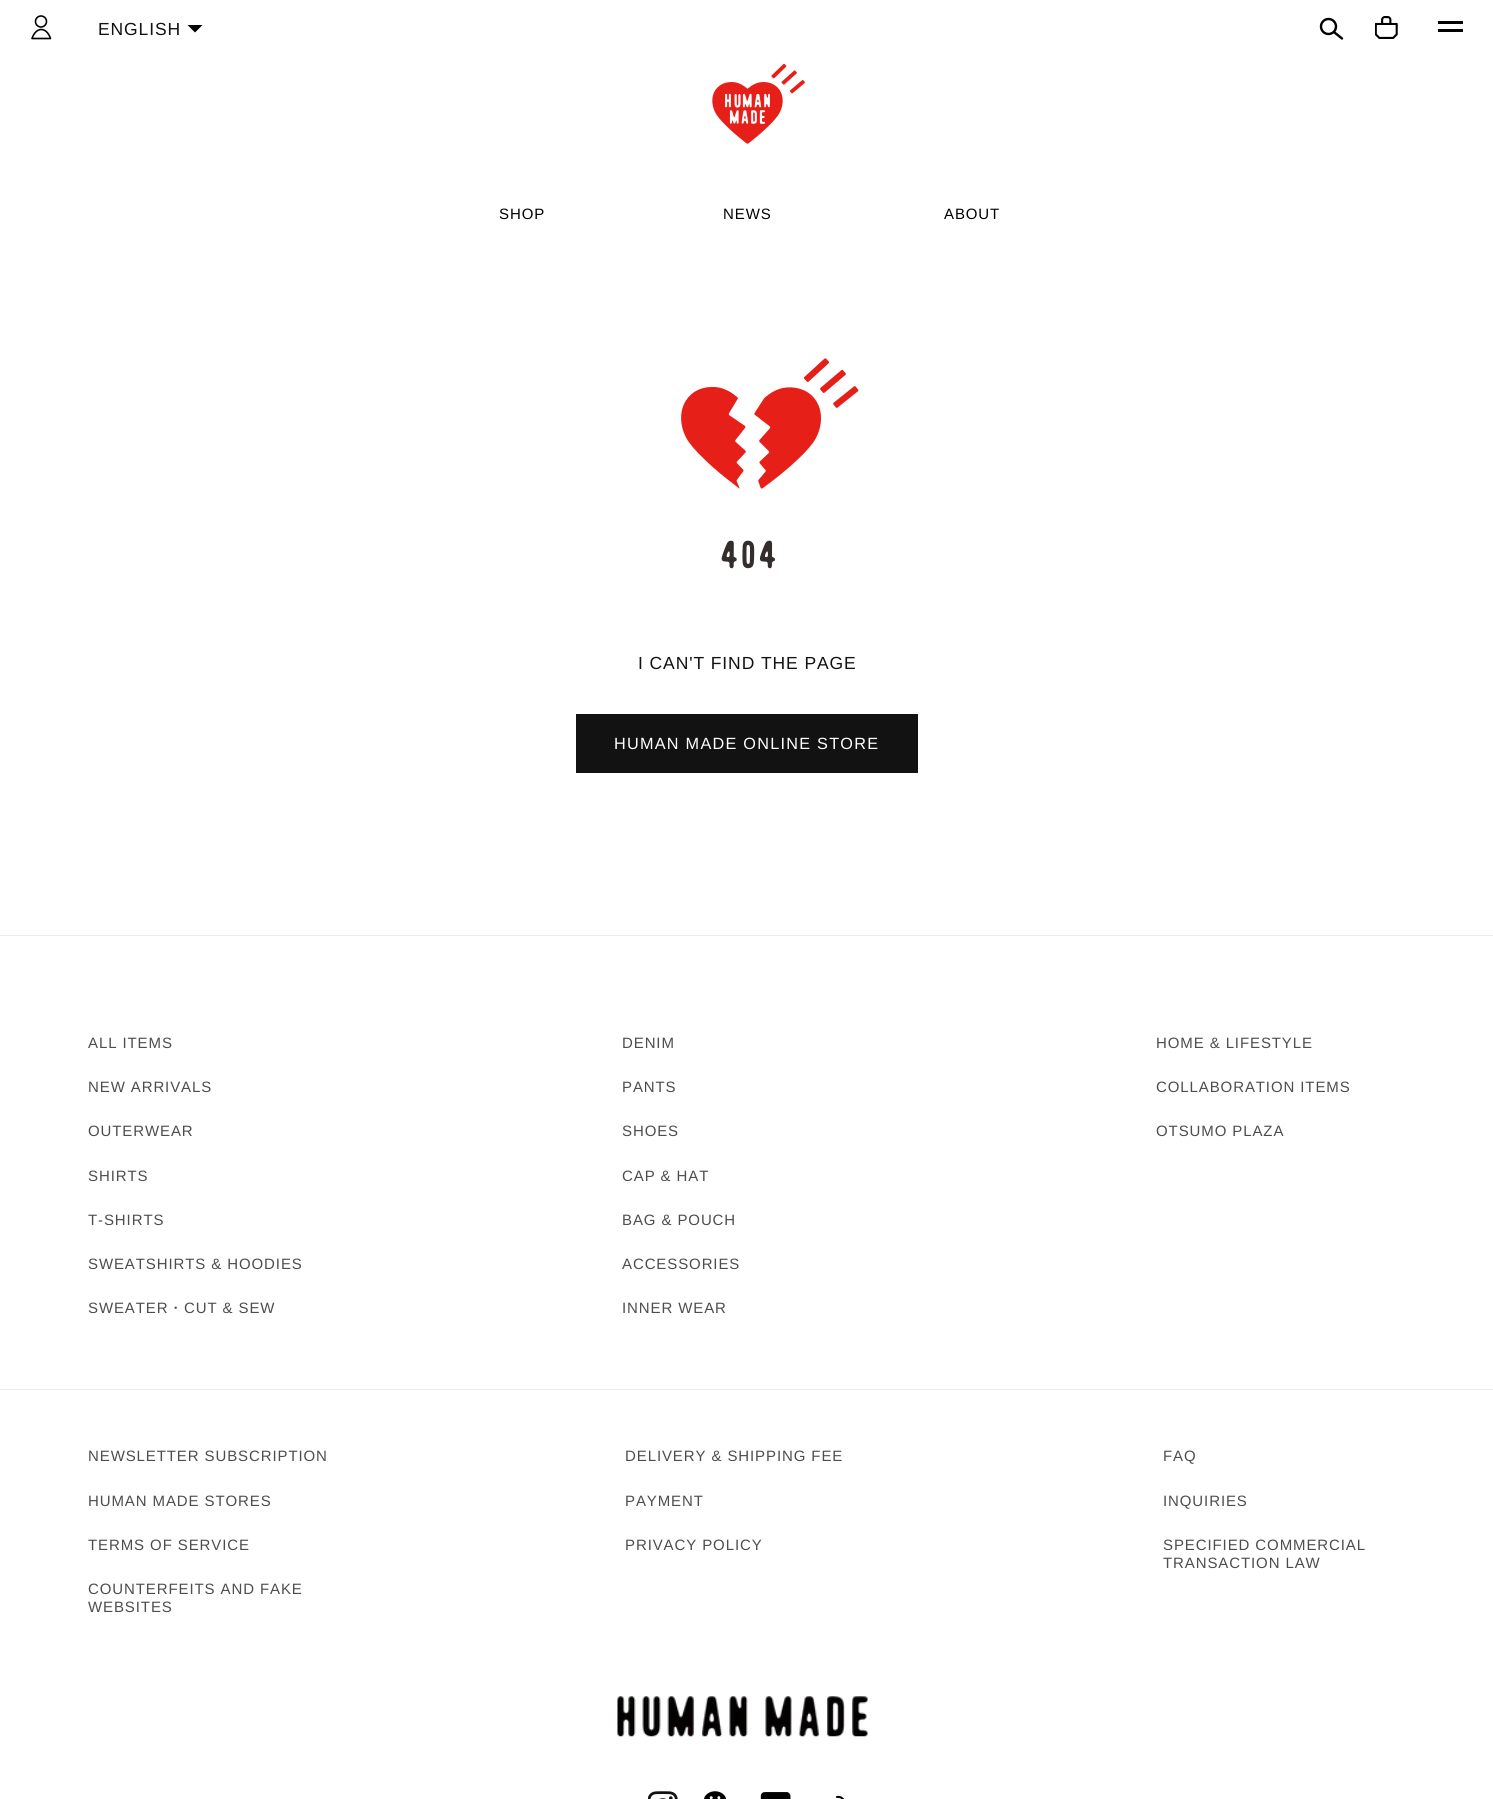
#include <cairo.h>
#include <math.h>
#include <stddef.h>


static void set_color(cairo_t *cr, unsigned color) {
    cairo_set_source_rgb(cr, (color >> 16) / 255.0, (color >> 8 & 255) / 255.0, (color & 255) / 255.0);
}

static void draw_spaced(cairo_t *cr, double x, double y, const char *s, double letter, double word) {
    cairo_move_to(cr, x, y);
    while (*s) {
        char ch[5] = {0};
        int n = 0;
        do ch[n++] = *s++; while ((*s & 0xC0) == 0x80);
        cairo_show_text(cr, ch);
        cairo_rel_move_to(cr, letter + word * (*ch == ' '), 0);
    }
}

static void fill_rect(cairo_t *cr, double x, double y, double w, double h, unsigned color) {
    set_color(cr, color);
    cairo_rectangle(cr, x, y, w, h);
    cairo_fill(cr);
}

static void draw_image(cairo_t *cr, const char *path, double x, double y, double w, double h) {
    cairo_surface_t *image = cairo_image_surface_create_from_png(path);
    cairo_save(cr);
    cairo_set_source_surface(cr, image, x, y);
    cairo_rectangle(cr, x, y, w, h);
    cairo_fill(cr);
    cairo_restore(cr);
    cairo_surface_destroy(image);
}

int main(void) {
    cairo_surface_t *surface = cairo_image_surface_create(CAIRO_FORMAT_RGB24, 1493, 1799);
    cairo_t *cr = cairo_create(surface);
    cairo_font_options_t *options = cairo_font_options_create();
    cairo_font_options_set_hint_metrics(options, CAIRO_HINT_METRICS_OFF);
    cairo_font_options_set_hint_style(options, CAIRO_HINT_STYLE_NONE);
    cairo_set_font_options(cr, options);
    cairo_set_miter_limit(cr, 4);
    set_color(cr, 0xFFFFFF);
    cairo_paint(cr);
    cairo_arc(cr, 41, 21.5, 5.5, 0, 2 * M_PI);
    set_color(cr, 0x000000);
    cairo_set_line_width(cr, 1.6);
    cairo_stroke(cr);
    cairo_new_path(cr);
    cairo_move_to(cr, 50.5, 38.5);
    cairo_curve_to(cr, 46.5, 26.5, 36, 26.5, 32, 38.5);
    cairo_close_path(cr);
    cairo_set_line_join(cr, CAIRO_LINE_JOIN_ROUND);
    cairo_stroke(cr);
    cairo_select_font_face(cr, "Liberation Sans", CAIRO_FONT_SLANT_NORMAL, CAIRO_FONT_WEIGHT_NORMAL);
    cairo_set_font_size(cr, 17.5);
    set_color(cr, 0x121212);
    draw_spaced(cr, 98, 35, "ENGLISH", 0.9, 0);
    set_color(cr, 0x000000);
    cairo_new_path(cr);
    cairo_move_to(cr, 187.5, 25);
    cairo_line_to(cr, 202.5, 25);
    cairo_line_to(cr, 195, 32.5);
    cairo_close_path(cr);
    cairo_fill(cr);
    cairo_arc(cr, 1328.5, 26.5, 7.5, 0, 2 * M_PI);
    cairo_set_line_width(cr, 2.4);
    cairo_set_line_join(cr, CAIRO_LINE_JOIN_MITER);
    cairo_stroke(cr);
    cairo_new_path(cr);
    cairo_move_to(cr, 1334.5, 32.5);
    cairo_line_to(cr, 1342, 38.5);
    cairo_set_line_cap(cr, CAIRO_LINE_CAP_ROUND);
    cairo_stroke(cr);
    draw_image(cr, "assets/img1.png", 1375, 16, 23, 23);
    fill_rect(cr, 1438, 21, 25, 3, 0x000000);
    fill_rect(cr, 1438, 29, 25, 3, 0x000000);
    draw_image(cr, "assets/img2.png", 712, 64, 93, 80);
    cairo_set_font_size(cr, 15);
    draw_spaced(cr, 499, 219, "SHOP", 0.9, 0);
    draw_spaced(cr, 723, 219, "NEWS", 0.9, 0);
    draw_spaced(cr, 944, 219, "ABOUT", 0.9, 0);
    draw_image(cr, "assets/img3.png", 681, 358, 178, 131);
    draw_image(cr, "assets/img4.png", 721, 540, 54, 29);
    cairo_set_font_size(cr, 17.5);
    set_color(cr, 0x121212);
    draw_spaced(cr, 638, 669, "I CAN'T FIND THE PAGE", 0.9, 0);
    fill_rect(cr, 576, 714, 342, 59, 0x121212);
    cairo_set_font_size(cr, 16.25);
    set_color(cr, 0xFFFFFF);
    draw_spaced(cr, 614, 749, "HUMAN MADE ONLINE STORE", 1.25, 0);
    fill_rect(cr, 0, 935, 1493, 1, 0xECECEC);
    cairo_set_font_size(cr, 15);
    set_color(cr, 0x4D4D4D);
    draw_spaced(cr, 88, 1048, "ALL ITEMS", 0.9, 0);
    draw_spaced(cr, 88, 1092, "NEW ARRIVALS", 0.9, 0);
    draw_spaced(cr, 88, 1136, "OUTERWEAR", 0.9, 0);
    draw_spaced(cr, 88, 1181, "SHIRTS", 0.9, 0);
    draw_spaced(cr, 88, 1225, "T-SHIRTS", 0.9, 0);
    draw_spaced(cr, 88, 1269, "SWEATSHIRTS & HOODIES", 0.9, 0);
    draw_spaced(cr, 88, 1313, "SWEATER", 0.9, 0);
    cairo_select_font_face(cr, "WenQuanYi Zen Hei Medium", CAIRO_FONT_SLANT_NORMAL, CAIRO_FONT_WEIGHT_NORMAL);
    draw_spaced(cr, 168, 1313, "・", 0.9, 0);
    cairo_select_font_face(cr, "Liberation Sans", CAIRO_FONT_SLANT_NORMAL, CAIRO_FONT_WEIGHT_NORMAL);
    draw_spaced(cr, 184, 1313, "CUT & SEW", 0.9, 0);
    draw_spaced(cr, 622, 1048, "DENIM", 0.9, 0);
    draw_spaced(cr, 622, 1092, "PANTS", 0.9, 0);
    draw_spaced(cr, 622, 1136, "SHOES", 0.9, 0);
    draw_spaced(cr, 622, 1181, "CAP & HAT", 0.9, 0);
    draw_spaced(cr, 622, 1225, "BAG & POUCH", 0.9, 0);
    draw_spaced(cr, 622, 1269, "ACCESSORIES", 0.9, 0);
    draw_spaced(cr, 622, 1313, "INNER WEAR", 0.9, 0);
    draw_spaced(cr, 1156, 1048, "HOME & LIFESTYLE", 0.9, 0);
    draw_spaced(cr, 1156, 1092, "COLLABORATION ITEMS", 0.9, 0);
    draw_spaced(cr, 1156, 1136, "OTSUMO PLAZA", 0.9, 0);
    fill_rect(cr, 0, 1389, 1493, 1, 0xECECEC);
    set_color(cr, 0x4D4D4D);
    draw_spaced(cr, 88, 1461, "NEWSLETTER SUBSCRIPTION", 0.9, 0);
    draw_spaced(cr, 88, 1506, "HUMAN MADE STORES", 0.9, 0);
    draw_spaced(cr, 88, 1550, "TERMS OF SERVICE", 0.9, 0);
    draw_spaced(cr, 88, 1594, "COUNTERFEITS AND FAKE", 0.9, 0);
    draw_spaced(cr, 88, 1612, "WEBSITES", 0.9, 0);
    draw_spaced(cr, 625, 1461, "DELIVERY & SHIPPING FEE", 0.9, 0);
    draw_spaced(cr, 625, 1506, "PAYMENT", 0.9, 0);
    draw_spaced(cr, 625, 1550, "PRIVACY POLICY", 0.9, 0);
    draw_spaced(cr, 1163, 1461, "FAQ", 0.9, 0);
    draw_spaced(cr, 1163, 1506, "INQUIRIES", 0.9, 0);
    draw_spaced(cr, 1163, 1550, "SPECIFIED COMMERCIAL", 0.9, 0);
    draw_spaced(cr, 1163, 1568, "TRANSACTION LAW", 0.9, 0);
    draw_image(cr, "assets/img5.png", 617, 1696, 251, 41);
    draw_image(cr, "assets/img6.png", 648, 1791, 30, 8);
    draw_image(cr, "assets/img7.png", 704, 1791, 23, 8);
    draw_image(cr, "assets/img8.png", 760, 1792, 31, 7);
    draw_image(cr, "assets/img9.png", 836, 1795, 9, 4);
    cairo_surface_write_to_png(surface, "output.png");
    cairo_font_options_destroy(options);
    cairo_destroy(cr);
    cairo_surface_destroy(surface);
    return 0;
}
